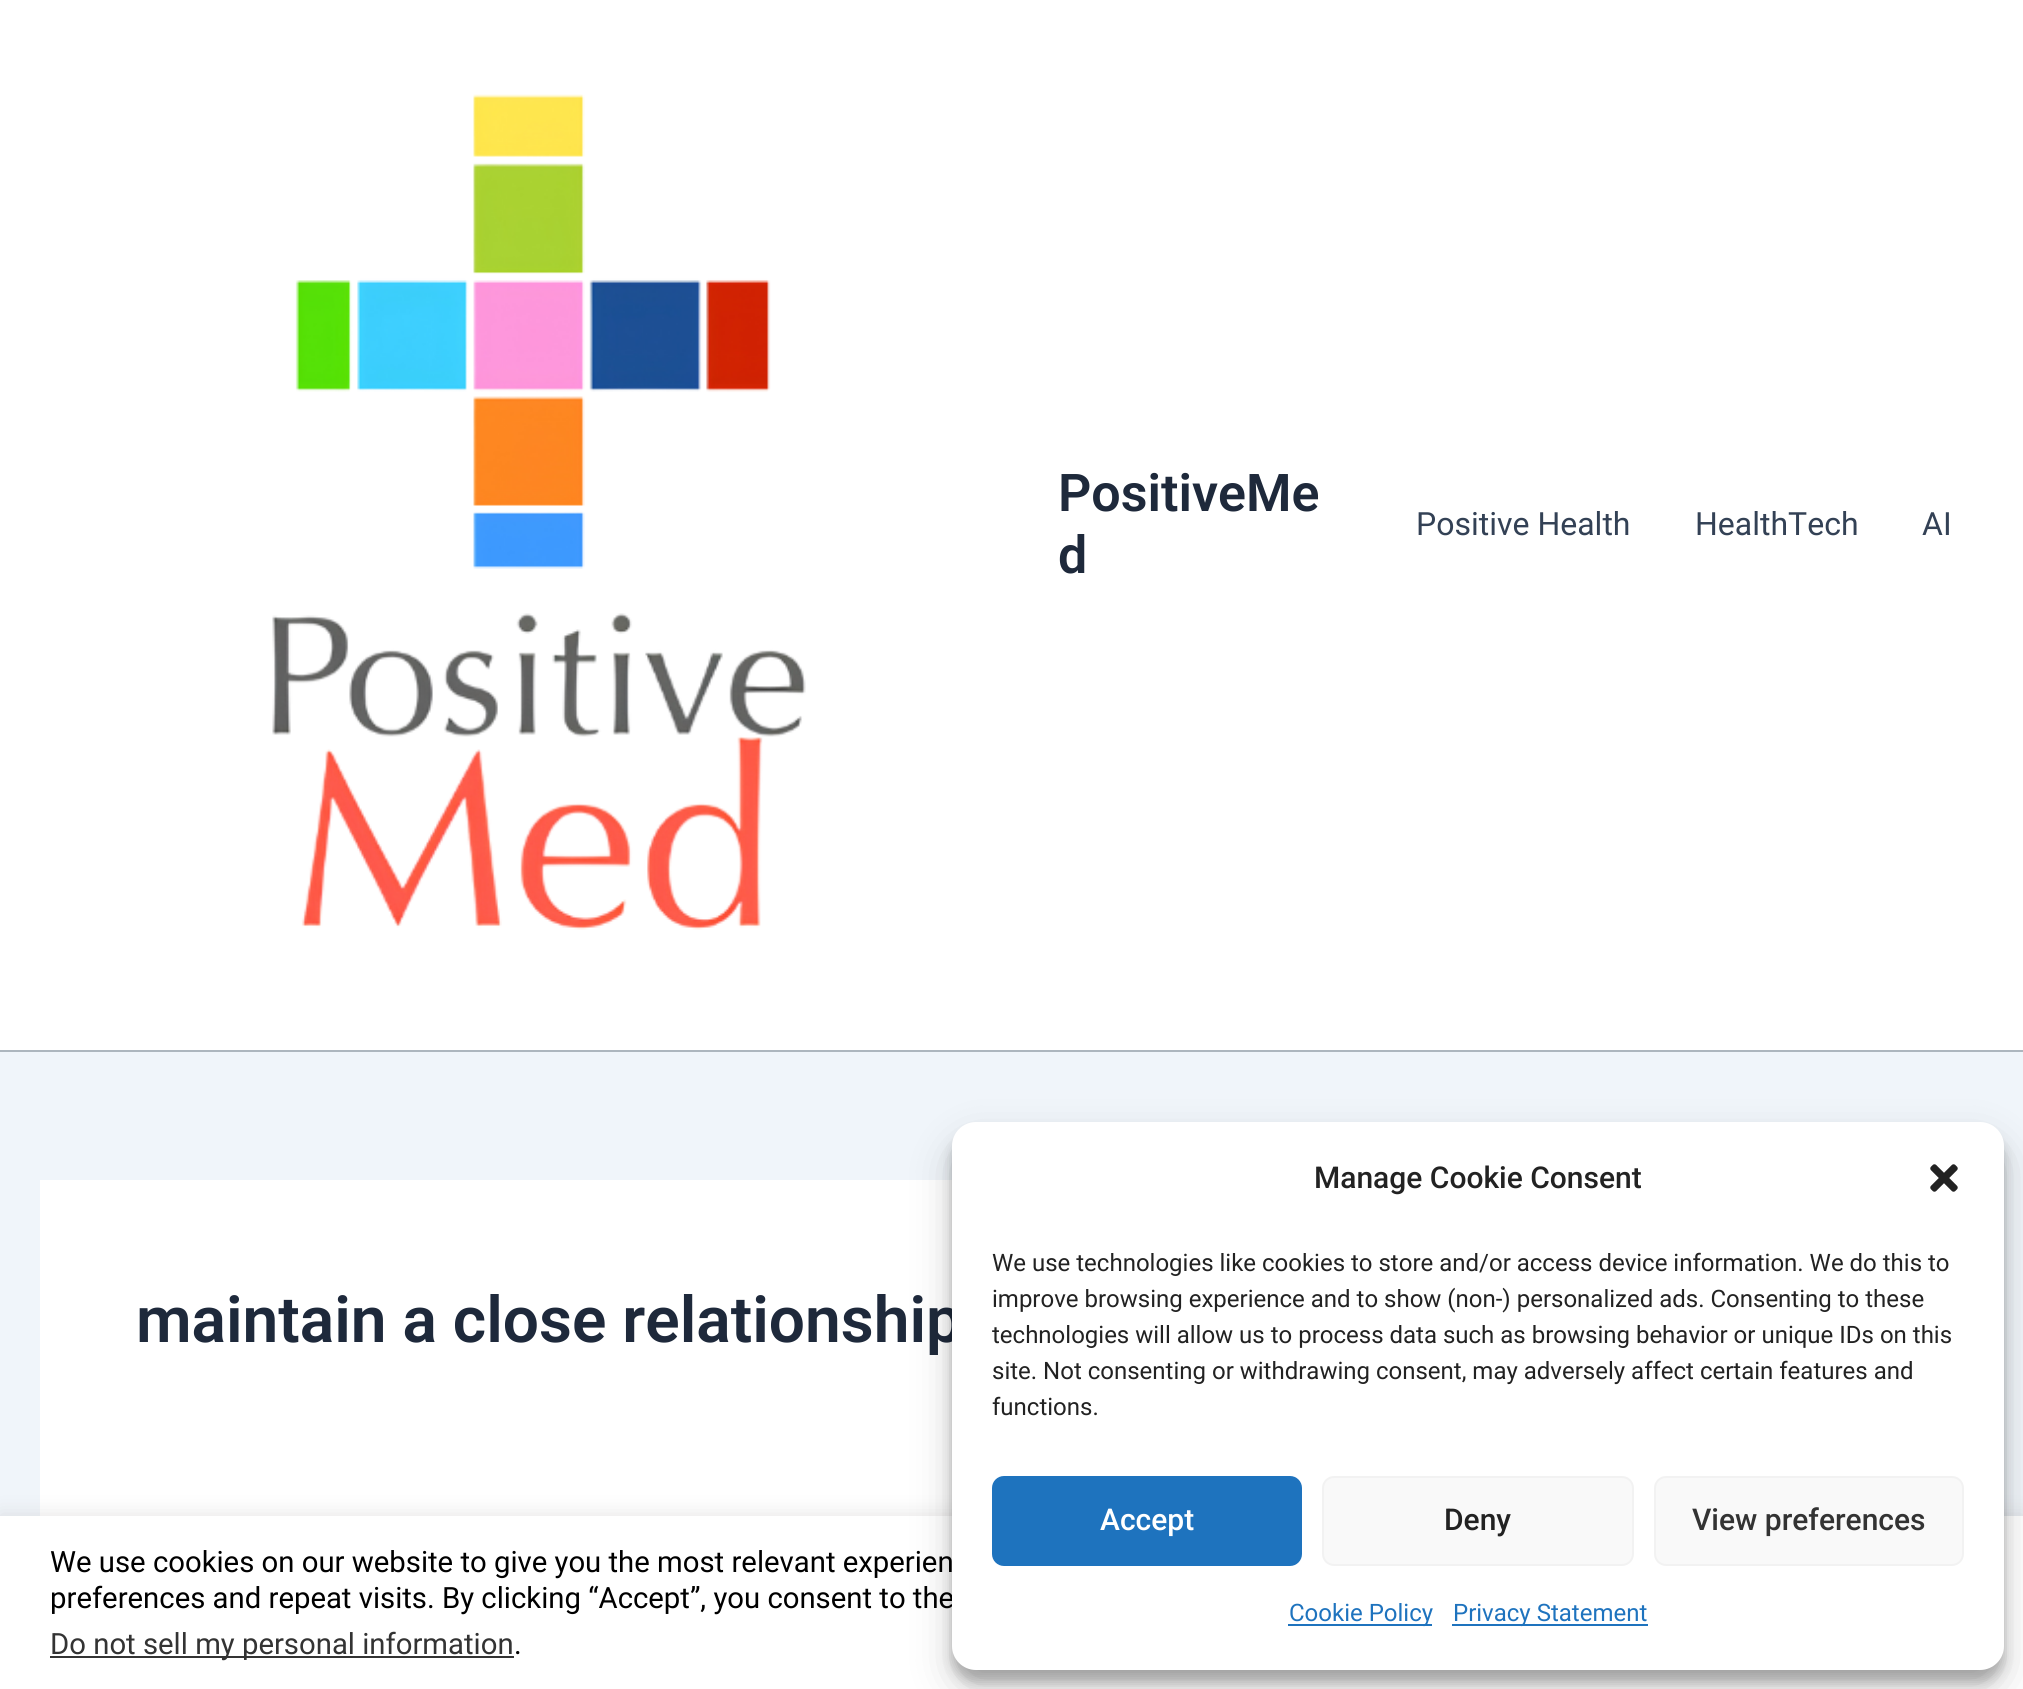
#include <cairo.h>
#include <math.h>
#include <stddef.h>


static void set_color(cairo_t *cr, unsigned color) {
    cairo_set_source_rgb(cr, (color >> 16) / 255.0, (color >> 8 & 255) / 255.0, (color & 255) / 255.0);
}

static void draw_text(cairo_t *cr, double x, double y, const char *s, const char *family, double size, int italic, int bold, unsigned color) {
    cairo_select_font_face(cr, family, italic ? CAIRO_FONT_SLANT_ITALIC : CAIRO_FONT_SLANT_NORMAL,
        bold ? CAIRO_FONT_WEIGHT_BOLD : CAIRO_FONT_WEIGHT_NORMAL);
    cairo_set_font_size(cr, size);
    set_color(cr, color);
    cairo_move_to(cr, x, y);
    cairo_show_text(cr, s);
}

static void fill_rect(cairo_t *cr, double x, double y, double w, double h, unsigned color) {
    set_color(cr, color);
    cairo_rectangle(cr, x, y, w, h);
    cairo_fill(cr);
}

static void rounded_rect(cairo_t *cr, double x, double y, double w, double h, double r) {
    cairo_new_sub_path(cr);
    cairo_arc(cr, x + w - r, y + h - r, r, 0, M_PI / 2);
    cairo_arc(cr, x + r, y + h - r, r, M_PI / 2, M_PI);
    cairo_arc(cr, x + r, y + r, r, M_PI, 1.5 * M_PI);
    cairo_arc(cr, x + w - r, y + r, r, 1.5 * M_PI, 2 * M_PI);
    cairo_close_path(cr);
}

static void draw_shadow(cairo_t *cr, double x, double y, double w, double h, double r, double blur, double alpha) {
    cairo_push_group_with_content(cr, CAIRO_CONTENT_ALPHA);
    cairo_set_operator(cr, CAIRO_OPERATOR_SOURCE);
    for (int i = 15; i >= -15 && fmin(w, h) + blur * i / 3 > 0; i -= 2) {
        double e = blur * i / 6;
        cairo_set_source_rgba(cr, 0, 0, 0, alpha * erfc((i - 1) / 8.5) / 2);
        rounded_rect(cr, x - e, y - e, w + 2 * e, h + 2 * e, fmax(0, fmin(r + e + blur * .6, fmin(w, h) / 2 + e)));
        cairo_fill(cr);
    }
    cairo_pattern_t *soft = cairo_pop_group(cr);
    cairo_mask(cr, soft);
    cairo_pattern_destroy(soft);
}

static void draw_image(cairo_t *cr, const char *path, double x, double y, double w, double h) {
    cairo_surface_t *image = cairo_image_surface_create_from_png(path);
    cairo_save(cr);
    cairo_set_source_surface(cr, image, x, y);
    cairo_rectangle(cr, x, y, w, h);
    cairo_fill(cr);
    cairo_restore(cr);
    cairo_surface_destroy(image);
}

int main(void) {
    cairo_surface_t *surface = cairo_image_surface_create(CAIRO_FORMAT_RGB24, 2023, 1689);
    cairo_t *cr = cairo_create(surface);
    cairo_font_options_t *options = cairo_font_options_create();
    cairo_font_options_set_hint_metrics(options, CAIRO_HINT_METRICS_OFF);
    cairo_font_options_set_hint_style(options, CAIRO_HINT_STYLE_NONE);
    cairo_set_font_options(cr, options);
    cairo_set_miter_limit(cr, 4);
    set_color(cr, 0xF0F5FA);
    cairo_paint(cr);
    fill_rect(cr, 0, 0, 2023, 1050, 0xFFFFFF);
    fill_rect(cr, 0, 1050, 2023, 2, 0xADB6BE);
    draw_image(cr, "assets/img1.png", 272, 94, 534, 836);
    draw_text(cr, 1058, 511, "PositiveMe", "Roboto SemiBold", 52, 0, 0, 0x1E293B);
    draw_text(cr, 1058, 573, "d", "Roboto SemiBold", 52, 0, 0, 0x1E293B);
    draw_text(cr, 1416, 535, "Positive Health", "Roboto", 32, 0, 0, 0x334155);
    draw_text(cr, 1695, 535, "HealthTech", "Roboto", 32, 0, 0, 0x334155);
    draw_text(cr, 1922, 535, "AI", "Roboto", 32, 0, 0, 0x334155);
    fill_rect(cr, 40, 1180, 912, 336, 0xFFFFFF);
    draw_text(cr, 136, 1342, "maintain a close relationship", "Roboto SemiBold", 64, 0, 0, 0x1E293B);
    set_color(cr, 0xACABAB);
    draw_shadow(cr, 0, 1514, 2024, 174, 0, 10, 0.3);
    fill_rect(cr, 0, 1516, 2023, 173, 0xFFFFFF);
    draw_text(cr, 50, 1572, "We use cookies on our website to give you the most relevant experien", "Roboto", 29.3, 0, 0, 0x000000);
    draw_text(cr, 50, 1608, "preferences and repeat visits. By clicking “Accept”, you consent to the", "Roboto", 29.3, 0, 0, 0x000000);
    fill_rect(cr, 50, 1656, 464, 2, 0x333333);
    draw_text(cr, 50, 1654, "Do not sell my personal information", "Roboto", 29.3, 0, 0, 0x333333);
    draw_text(cr, 514, 1654, ".", "Roboto", 29.3, 0, 0, 0x000000);
    set_color(cr, 0x000000);
    draw_shadow(cr, 952, 1134, 1052, 548, 24, 6, 0.23);
    draw_shadow(cr, 952, 1142, 1052, 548, 24, 20, 0.19);
    set_color(cr, 0xFFFFFF);
    rounded_rect(cr, 952, 1122, 1052, 548, 24);
    cairo_fill(cr);
    draw_text(cr, 1314, 1188, "Manage Cookie Consent", "Roboto Medium", 30, 0, 0, 0x222222);
    draw_image(cr, "assets/img2.png", 1930, 1164, 28, 28);
    draw_text(cr, 992, 1271, "We use technologies like cookies to store and/or access device information. We do this to", "Roboto", 24, 0, 0, 0x222222);
    draw_text(cr, 992, 1307, "improve browsing experience and to show (non-) personalized ads. Consenting to these", "Roboto", 24, 0, 0, 0x222222);
    draw_text(cr, 992, 1343, "technologies will allow us to process data such as browsing behavior or unique IDs on this", "Roboto", 24, 0, 0, 0x222222);
    draw_text(cr, 992, 1379, "site. Not consenting or withdrawing consent, may adversely affect certain features and", "Roboto", 24, 0, 0, 0x222222);
    draw_text(cr, 992, 1415, "functions.", "Roboto", 24, 0, 0, 0x222222);
    set_color(cr, 0x1E73BE);
    rounded_rect(cr, 993, 1477, 308, 88, 11);
    cairo_fill_preserve(cr);
    cairo_stroke(cr);
    draw_text(cr, 1100, 1530, "Accept", "Roboto Medium", 30, 0, 0, 0xFFFFFF);
    set_color(cr, 0xF9F9F9);
    rounded_rect(cr, 1323, 1477, 310, 88, 11);
    cairo_fill_preserve(cr);
    set_color(cr, 0xF2F2F2);
    cairo_stroke(cr);
    draw_text(cr, 1444, 1530, "Deny", "Roboto Medium", 30, 0, 0, 0x222222);
    set_color(cr, 0xF9F9F9);
    rounded_rect(cr, 1655, 1477, 308, 88, 11);
    cairo_fill_preserve(cr);
    set_color(cr, 0xF2F2F2);
    cairo_stroke(cr);
    draw_text(cr, 1692, 1530, "View preferences", "Roboto Medium", 30, 0, 0, 0x333333);
    fill_rect(cr, 1288, 1624, 144, 2, 0x1E73BE);
    draw_text(cr, 1289, 1621, "Cookie Policy", "Roboto", 24, 0, 0, 0x1E73BE);
    fill_rect(cr, 1452, 1624, 196, 2, 0x1E73BE);
    draw_text(cr, 1453, 1621, "Privacy Statement", "Roboto", 24, 0, 0, 0x1E73BE);
    cairo_surface_write_to_png(surface, "output.png");
    cairo_font_options_destroy(options);
    cairo_destroy(cr);
    cairo_surface_destroy(surface);
    return 0;
}
